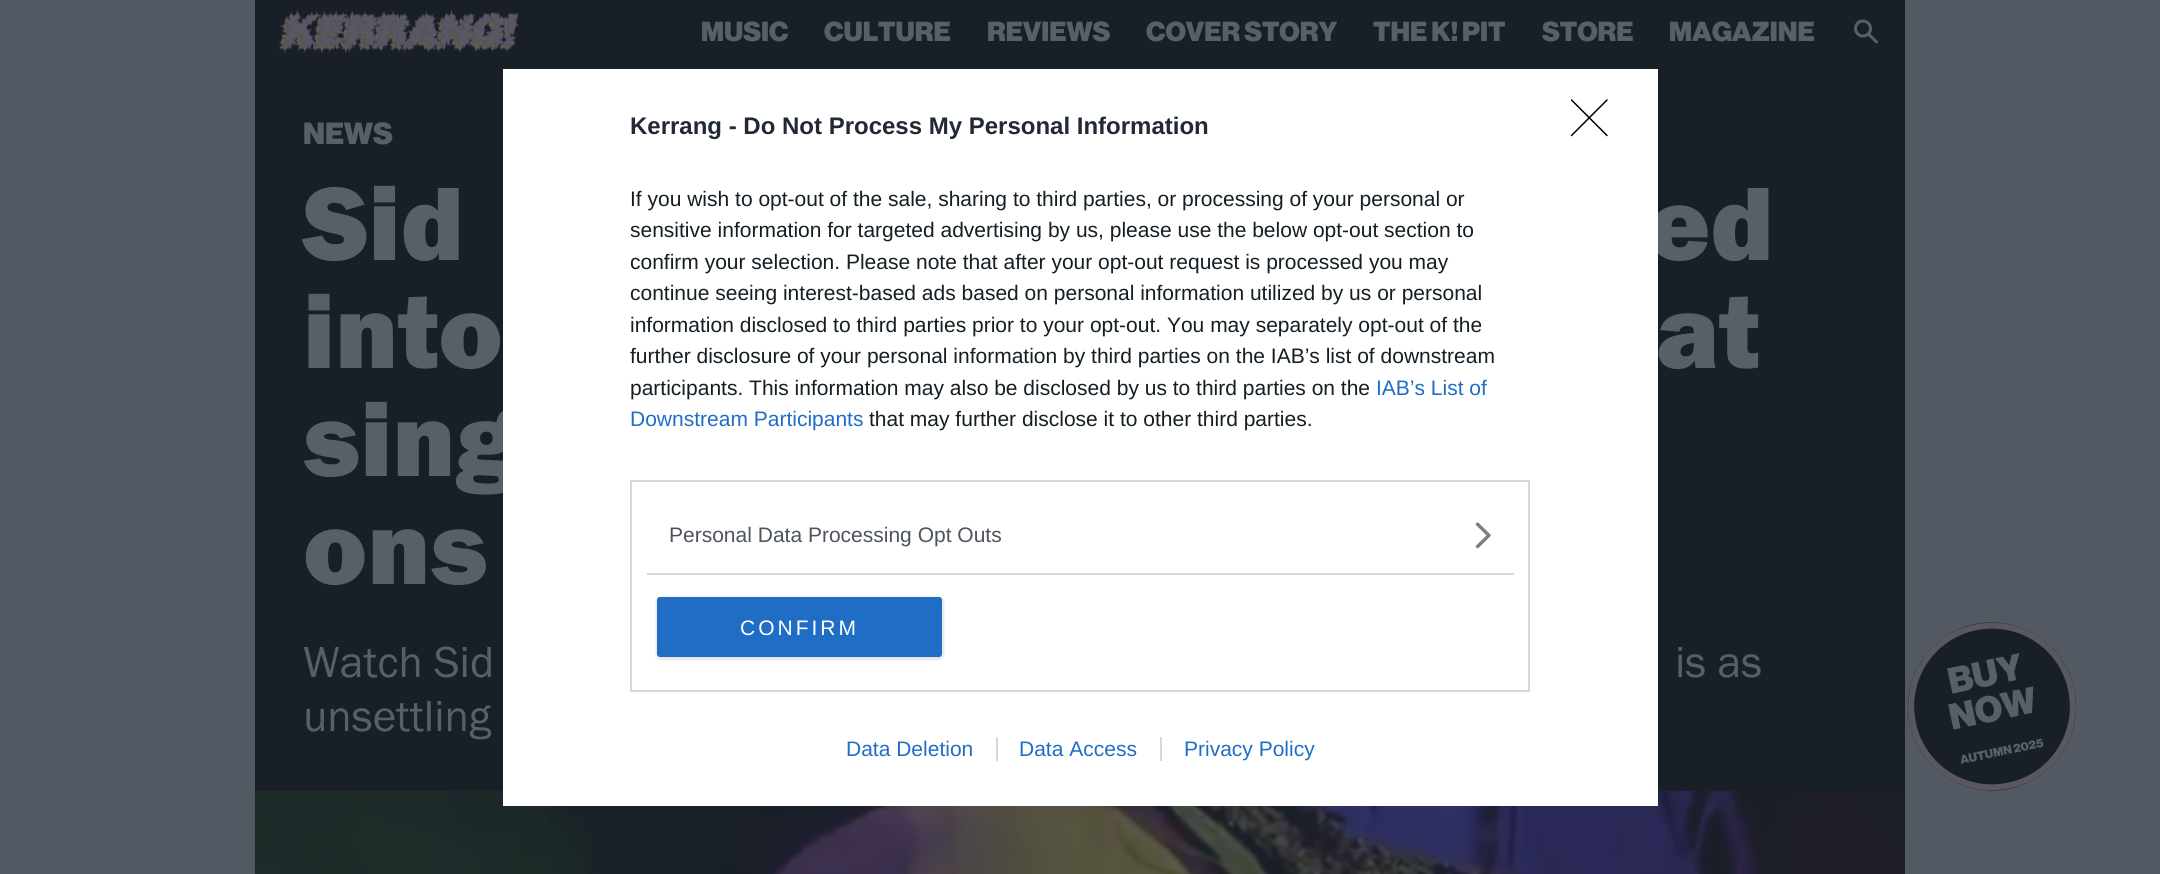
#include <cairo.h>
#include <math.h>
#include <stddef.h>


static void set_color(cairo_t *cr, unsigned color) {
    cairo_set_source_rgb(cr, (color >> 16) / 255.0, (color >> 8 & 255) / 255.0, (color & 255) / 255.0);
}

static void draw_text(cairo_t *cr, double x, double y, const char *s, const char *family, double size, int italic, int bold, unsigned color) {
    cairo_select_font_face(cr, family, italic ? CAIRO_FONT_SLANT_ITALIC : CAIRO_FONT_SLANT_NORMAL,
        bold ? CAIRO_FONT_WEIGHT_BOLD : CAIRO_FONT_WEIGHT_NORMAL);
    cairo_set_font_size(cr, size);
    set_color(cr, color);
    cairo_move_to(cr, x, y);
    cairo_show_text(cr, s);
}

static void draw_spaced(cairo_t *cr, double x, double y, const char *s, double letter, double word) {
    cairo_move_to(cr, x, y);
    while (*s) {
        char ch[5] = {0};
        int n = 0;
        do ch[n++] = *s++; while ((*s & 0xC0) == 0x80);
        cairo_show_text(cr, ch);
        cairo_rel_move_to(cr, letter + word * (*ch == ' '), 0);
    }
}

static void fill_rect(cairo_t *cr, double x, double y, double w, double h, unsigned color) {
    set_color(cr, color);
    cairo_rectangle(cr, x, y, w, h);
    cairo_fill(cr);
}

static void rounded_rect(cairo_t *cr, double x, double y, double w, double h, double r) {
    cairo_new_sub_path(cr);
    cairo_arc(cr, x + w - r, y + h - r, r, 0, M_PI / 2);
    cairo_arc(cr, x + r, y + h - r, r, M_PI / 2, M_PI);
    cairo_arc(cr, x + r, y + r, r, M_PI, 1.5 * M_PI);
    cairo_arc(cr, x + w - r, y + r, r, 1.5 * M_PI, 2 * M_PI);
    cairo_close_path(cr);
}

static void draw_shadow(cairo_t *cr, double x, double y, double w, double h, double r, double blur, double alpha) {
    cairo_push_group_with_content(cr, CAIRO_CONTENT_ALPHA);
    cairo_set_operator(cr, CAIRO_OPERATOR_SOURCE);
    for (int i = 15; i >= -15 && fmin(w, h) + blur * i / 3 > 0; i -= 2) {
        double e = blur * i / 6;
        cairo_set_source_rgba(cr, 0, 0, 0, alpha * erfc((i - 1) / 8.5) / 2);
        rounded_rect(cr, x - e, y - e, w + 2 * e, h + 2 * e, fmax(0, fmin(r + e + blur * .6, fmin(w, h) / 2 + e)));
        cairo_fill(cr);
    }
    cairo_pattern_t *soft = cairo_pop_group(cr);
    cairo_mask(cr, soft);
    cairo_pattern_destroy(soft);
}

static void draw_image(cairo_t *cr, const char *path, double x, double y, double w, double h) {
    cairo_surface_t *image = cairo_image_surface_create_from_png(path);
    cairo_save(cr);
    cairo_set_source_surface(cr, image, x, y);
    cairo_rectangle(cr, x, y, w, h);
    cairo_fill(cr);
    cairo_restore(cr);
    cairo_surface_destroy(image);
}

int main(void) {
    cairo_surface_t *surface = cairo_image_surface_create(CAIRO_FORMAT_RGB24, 2160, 874);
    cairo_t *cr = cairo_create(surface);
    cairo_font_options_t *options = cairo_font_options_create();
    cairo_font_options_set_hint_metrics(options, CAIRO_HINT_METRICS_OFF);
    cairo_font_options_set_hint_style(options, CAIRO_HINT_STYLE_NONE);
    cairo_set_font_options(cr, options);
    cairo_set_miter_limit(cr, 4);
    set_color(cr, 0x535962);
    cairo_paint(cr);
    fill_rect(cr, 255, 0, 1650, 791, 0x191F27);
    draw_image(cr, "assets/img1.png", 279, 10, 240, 43);
    draw_text(cr, 701, 41, "MUSIC", "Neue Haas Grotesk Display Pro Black", 27, 0, 0, 0x595F67);
    draw_text(cr, 824, 41, "CULTURE", "Neue Haas Grotesk Display Pro Black", 27, 0, 0, 0x595F67);
    draw_text(cr, 987, 41, "REVIEWS", "Neue Haas Grotesk Display Pro Black", 27, 0, 0, 0x595F67);
    draw_text(cr, 1146, 41, "COVER STORY", "Neue Haas Grotesk Display Pro Black", 27, 0, 0, 0x595F67);
    draw_text(cr, 1373, 41, "THE K! PIT", "Neue Haas Grotesk Display Pro Black", 27, 0, 0, 0x595F67);
    draw_text(cr, 1542, 41, "STORE", "Neue Haas Grotesk Display Pro Black", 27, 0, 0, 0x595F67);
    draw_text(cr, 1669, 41, "MAGAZINE", "Neue Haas Grotesk Display Pro Black", 27, 0, 0, 0x595F67);
    draw_image(cr, "assets/img2.png", 1854, 19, 24, 25);
    draw_text(cr, 303, 144, "NEWS", "Neue Haas Grotesk Display Pro Black", 30, 0, 0, 0x595F67);
    draw_text(cr, 303, 260, "Sid", "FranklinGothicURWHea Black", 108, 0, 0, 0x595F67);
    draw_text(cr, 1647, 260, "ed", "FranklinGothicURWHea Black", 108, 0, 0, 0x595F67);
    draw_text(cr, 303, 368, "into", "FranklinGothicURWHea Black", 108, 0, 0, 0x595F67);
    draw_text(cr, 1656, 368, "at", "FranklinGothicURWHea Black", 108, 0, 0, 0x595F67);
    draw_text(cr, 303, 476, "sing", "FranklinGothicURWHea Black", 108, 0, 0, 0x595F67);
    draw_text(cr, 303, 584, "ons", "FranklinGothicURWHea Black", 108, 0, 0, 0x595F67);
    draw_text(cr, 303, 677, "Watch Sid", "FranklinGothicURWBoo", 45, 0, 0, 0x595F67);
    draw_text(cr, 1675, 677, "is as", "FranklinGothicURWBoo", 45, 0, 0, 0x595F67);
    draw_text(cr, 303, 731, "unsettling", "FranklinGothicURWBoo", 45, 0, 0, 0x595F67);
    set_color(cr, 0x191F27);
    cairo_new_path(cr);
    cairo_move_to(cr, 1975, 624);
    cairo_curve_to(cr, 2020, 615, 2065, 644, 2074, 689);
    cairo_curve_to(cr, 2084, 734, 2055, 779, 2009, 789);
    cairo_curve_to(cr, 1964, 798, 1919, 769, 1910, 724);
    cairo_curve_to(cr, 1900, 679, 1929, 634, 1975, 624);
    cairo_close_path(cr);
    cairo_fill(cr);
    cairo_new_path(cr);
    cairo_move_to(cr, 1975, 627.5);
    cairo_curve_to(cr, 2019, 618, 2062, 646, 2071, 689.5);
    cairo_curve_to(cr, 2080.5, 733.5, 2052.5, 776.5, 2009, 785.5);
    cairo_curve_to(cr, 1965, 795, 1922, 767, 1913, 723.5);
    cairo_curve_to(cr, 1903.5, 679.5, 1931.5, 636.5, 1975, 627.5);
    cairo_close_path(cr);
    set_color(cr, 0x595862);
    cairo_set_line_width(cr, 6);
    cairo_stroke(cr);
    cairo_save(cr);
    cairo_translate(cr, 1951, 694);
    cairo_rotate(cr, -12 * M_PI / 180);
    draw_text(cr, 0, 0, "BUY", "Neue Haas Grotesk Display Pro Black", 36, 0, 0, 0x595F67);
    cairo_restore(cr);
    cairo_save(cr);
    cairo_translate(cr, 1952, 730);
    cairo_rotate(cr, -12 * M_PI / 180);
    draw_text(cr, 0, 0, "NOW", "Neue Haas Grotesk Display Pro Black", 36, 0, 0, 0x595F67);
    cairo_restore(cr);
    cairo_save(cr);
    cairo_translate(cr, 1961, 764);
    cairo_rotate(cr, -12 * M_PI / 180);
    draw_text(cr, 0, 0, "AUTUMN 2025", "Neue Haas Grotesk Display Pro Black", 12, 0, 0, 0x595F67);
    cairo_restore(cr);
    draw_image(cr, "assets/img3.png", 255, 790, 1650, 84);
    fill_rect(cr, 503, 69, 1155, 737, 0xFFFFFF);
    draw_text(cr, 630, 134, "Kerrang - Do Not Process My Personal Information", "Liberation Sans", 24, 0, 1, 0x212934);
    draw_text(cr, 630, 206, "If you wish to opt-out of the sale, sharing to third parties, or processing of your personal or", "Liberation Sans", 21, 0, 0, 0x141E23);
    draw_text(cr, 630, 237, "sensitive information for targeted advertising by us, please use the below opt-out section to", "Liberation Sans", 21, 0, 0, 0x141E23);
    draw_text(cr, 630, 269, "confirm your selection. Please note that after your opt-out request is processed you may", "Liberation Sans", 21, 0, 0, 0x141E23);
    draw_text(cr, 630, 300, "continue seeing interest-based ads based on personal information utilized by us or personal", "Liberation Sans", 21, 0, 0, 0x141E23);
    draw_text(cr, 630, 332, "information disclosed to third parties prior to your opt-out. You may separately opt-out of the", "Liberation Sans", 21, 0, 0, 0x141E23);
    draw_text(cr, 630, 363, "further disclosure of your personal information by third parties on the IAB’s list of downstream", "Liberation Sans", 21, 0, 0, 0x141E23);
    draw_text(cr, 630, 395, "participants. This information may also be disclosed by us to third parties on the", "Liberation Sans", 21, 0, 0, 0x141E23);
    draw_text(cr, 1376, 395, "IAB’s List of", "Liberation Sans", 21, 0, 0, 0x206DC5);
    draw_text(cr, 630, 426, "Downstream Participants", "Liberation Sans", 21, 0, 0, 0x206DC5);
    draw_text(cr, 869, 426, "that may further disclose it to other third parties.", "Liberation Sans", 21, 0, 0, 0x141E23);
    cairo_rectangle(cr, 631, 481, 898, 210);
    set_color(cr, 0xD8D8D8);
    cairo_set_line_width(cr, 2);
    cairo_stroke(cr);
    fill_rect(cr, 647, 573, 867, 2, 0xD8D8D8);
    draw_text(cr, 669, 542, "Personal Data Processing Opt Outs", "Liberation Sans", 21, 0, 0, 0x4D545D);
    draw_image(cr, "assets/img4.png", 1475, 522, 16, 27);
    set_color(cr, 0x000000);
    draw_shadow(cr, 656, 597, 288, 63, 5, 1, 0.1);
    set_color(cr, 0x206DC5);
    rounded_rect(cr, 657, 597, 285, 60, 3);
    cairo_fill(cr);
    set_color(cr, 0xFFFFFF);
    draw_spaced(cr, 740, 635, "CONFIRM", 3, 0);
    cairo_save(cr);
    cairo_rectangle(cr, 1571, 99, 37, 38);
    cairo_clip(cr);
    cairo_new_path(cr);
    cairo_move_to(cr, 1571.5, 100);
    cairo_line_to(cr, 1607, 135.5);
    cairo_move_to(cr, 1607, 100);
    cairo_line_to(cr, 1571.5, 135.5);
    set_color(cr, 0x000000);
    cairo_set_line_width(cr, 1.5);
    cairo_set_line_cap(cr, CAIRO_LINE_CAP_ROUND);
    cairo_set_line_join(cr, CAIRO_LINE_JOIN_ROUND);
    cairo_stroke(cr);
    cairo_restore(cr);
    draw_text(cr, 846, 756, "Data Deletion", "Liberation Sans", 21, 0, 0, 0x206DC5);
    draw_text(cr, 1019, 756, "Data Access", "Liberation Sans", 21, 0, 0, 0x206DC5);
    fill_rect(cr, 996, 737, 2, 24, 0xD8D8D8);
    draw_text(cr, 1184, 756, "Privacy Policy", "Liberation Sans", 21, 0, 0, 0x206DC5);
    fill_rect(cr, 1160, 737, 2, 24, 0xD8D8D8);
    cairo_surface_write_to_png(surface, "output.png");
    cairo_font_options_destroy(options);
    cairo_destroy(cr);
    cairo_surface_destroy(surface);
    return 0;
}
